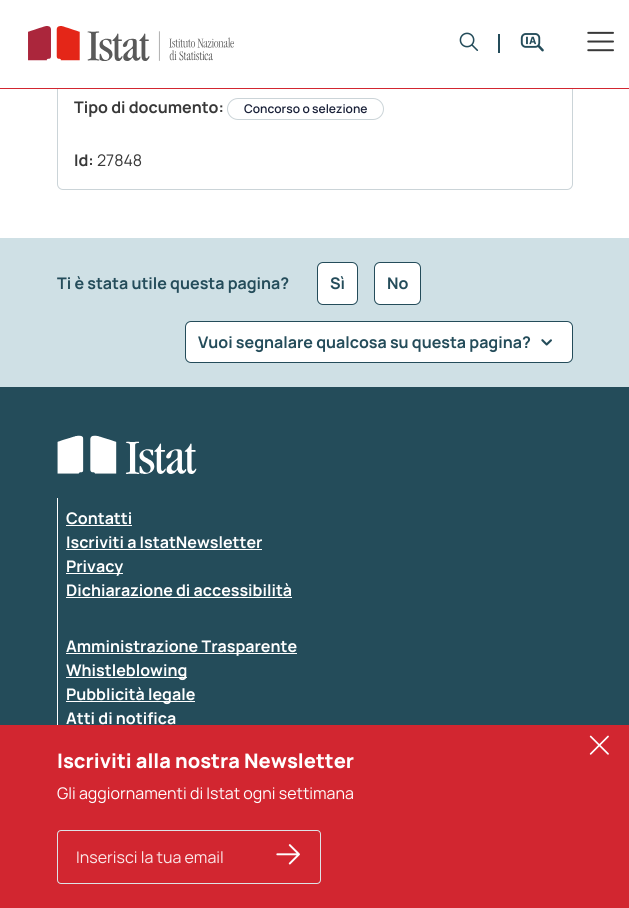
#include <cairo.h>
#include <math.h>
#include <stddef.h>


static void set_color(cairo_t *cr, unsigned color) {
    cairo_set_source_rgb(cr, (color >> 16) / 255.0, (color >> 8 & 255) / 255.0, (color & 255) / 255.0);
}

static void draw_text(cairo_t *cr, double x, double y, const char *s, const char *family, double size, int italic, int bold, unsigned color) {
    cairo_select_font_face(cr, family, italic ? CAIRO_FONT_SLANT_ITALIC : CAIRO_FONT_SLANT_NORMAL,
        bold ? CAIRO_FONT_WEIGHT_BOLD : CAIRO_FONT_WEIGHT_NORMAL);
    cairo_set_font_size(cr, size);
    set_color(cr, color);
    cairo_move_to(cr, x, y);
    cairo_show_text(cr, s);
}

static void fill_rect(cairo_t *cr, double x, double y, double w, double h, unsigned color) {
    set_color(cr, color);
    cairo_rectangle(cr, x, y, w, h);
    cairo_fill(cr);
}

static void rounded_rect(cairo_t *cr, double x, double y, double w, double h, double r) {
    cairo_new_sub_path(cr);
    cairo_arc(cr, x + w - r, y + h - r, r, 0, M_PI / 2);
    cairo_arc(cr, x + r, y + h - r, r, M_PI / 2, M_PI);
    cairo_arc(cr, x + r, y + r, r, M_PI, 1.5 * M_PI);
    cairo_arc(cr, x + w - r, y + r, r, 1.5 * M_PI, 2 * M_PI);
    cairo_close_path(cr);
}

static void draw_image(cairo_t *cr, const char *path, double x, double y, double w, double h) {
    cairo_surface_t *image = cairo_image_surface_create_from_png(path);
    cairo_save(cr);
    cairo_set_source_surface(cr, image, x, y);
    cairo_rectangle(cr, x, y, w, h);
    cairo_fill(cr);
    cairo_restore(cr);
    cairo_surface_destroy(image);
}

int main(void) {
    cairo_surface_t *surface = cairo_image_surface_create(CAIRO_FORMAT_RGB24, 629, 908);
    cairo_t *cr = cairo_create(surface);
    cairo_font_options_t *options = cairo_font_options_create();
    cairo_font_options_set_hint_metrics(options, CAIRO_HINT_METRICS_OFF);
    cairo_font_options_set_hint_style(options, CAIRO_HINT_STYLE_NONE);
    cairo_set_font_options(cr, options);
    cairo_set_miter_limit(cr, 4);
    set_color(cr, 0xFFFFFF);
    cairo_paint(cr);
    rounded_rect(cr, 57.5, 15.5, 515, 174, 5.5);
    set_color(cr, 0xCBD4D8);
    cairo_set_line_width(cr, 1);
    cairo_stroke(cr);
    fill_rect(cr, 57, 15, 516, 73, 0xFFFFFF);
    fill_rect(cr, 0, 88, 629, 1, 0xD22630);
    draw_image(cr, "assets/img1.png", 28, 26, 206, 35);
    draw_image(cr, "assets/img2.png", 459, 32, 20, 19);
    fill_rect(cr, 498, 34, 2, 19, 0x244C5A);
    draw_image(cr, "assets/img3.png", 520, 33, 24, 19);
    draw_image(cr, "assets/img4.png", 587, 31, 27, 21);
    draw_text(cr, 74, 113, "Tipo di documento:", "Manrope", 16, 0, 1, 0x383838);
    rounded_rect(cr, 227.5, 98.5, 156, 21, 10.5);
    set_color(cr, 0xCBD4D8);
    cairo_stroke(cr);
    draw_text(cr, 244, 113, "Concorso o selezione", "Manrope SemiBold", 12, 0, 0, 0x192038);
    draw_text(cr, 74, 166, "Id:", "Manrope", 16, 0, 1, 0x383838);
    draw_text(cr, 97, 166, "27848", "Manrope", 16, 0, 0, 0x383838);
    fill_rect(cr, 0, 238, 629, 149, 0xCFE0E5);
    draw_text(cr, 57, 289, "Ti è stata utile questa pagina?", "Manrope", 16, 0, 1, 0x244C5A);
    set_color(cr, 0xFFFFFF);
    rounded_rect(cr, 317.5, 262.5, 40, 42, 5.5);
    cairo_fill_preserve(cr);
    set_color(cr, 0x244C5A);
    cairo_stroke(cr);
    draw_text(cr, 330, 289, "Sì", "Manrope", 16, 0, 1, 0x244C5A);
    set_color(cr, 0xFFFFFF);
    rounded_rect(cr, 374.5, 262.5, 46, 42, 5.5);
    cairo_fill_preserve(cr);
    set_color(cr, 0x244C5A);
    cairo_stroke(cr);
    draw_text(cr, 387, 289, "No", "Manrope", 16, 0, 1, 0x244C5A);
    set_color(cr, 0xFFFFFF);
    rounded_rect(cr, 185.5, 321.5, 387, 41, 5.5);
    cairo_fill_preserve(cr);
    set_color(cr, 0x244C5A);
    cairo_stroke(cr);
    draw_text(cr, 198, 348, "Vuoi segnalare qualcosa su questa pagina?", "Manrope", 16, 0, 1, 0x244C5A);
    draw_image(cr, "assets/img5.png", 541, 339, 11, 7);
    fill_rect(cr, 0, 387, 629, 338, 0x244C5A);
    draw_image(cr, "assets/img6.png", 57, 435, 140, 39);
    fill_rect(cr, 57, 498, 1, 227, 0xFFFFFF);
    draw_text(cr, 66, 524, "Contatti", "Manrope", 16, 0, 1, 0xFFFFFF);
    fill_rect(cr, 66, 525, 66, 1, 0xFFFFFF);
    draw_text(cr, 66, 548, "Iscriviti a IstatNewsletter", "Manrope", 16, 0, 1, 0xFFFFFF);
    fill_rect(cr, 66, 549, 196, 1, 0xFFFFFF);
    fill_rect(cr, 66, 573, 57, 1, 0xFFFFFF);
    draw_text(cr, 66, 572, "Privacy", "Manrope", 16, 0, 1, 0xFFFFFF);
    draw_text(cr, 66, 596, "Dichiarazione di accessibilità", "Manrope", 16, 0, 1, 0xFFFFFF);
    fill_rect(cr, 66, 597, 226, 1, 0xFFFFFF);
    fill_rect(cr, 66, 653, 231, 1, 0xFFFFFF);
    draw_text(cr, 66, 652, "Amministrazione Trasparente", "Manrope", 16, 0, 1, 0xFFFFFF);
    fill_rect(cr, 66, 677, 121, 1, 0xFFFFFF);
    draw_text(cr, 66, 676, "Whistleblowing", "Manrope", 16, 0, 1, 0xFFFFFF);
    fill_rect(cr, 66, 701, 129, 1, 0xFFFFFF);
    draw_text(cr, 66, 700, "Pubblicità legale", "Manrope", 16, 0, 1, 0xFFFFFF);
    draw_text(cr, 66, 724, "Atti di notifica", "Manrope", 16, 0, 1, 0xFFFFFF);
    fill_rect(cr, 0, 725, 629, 183, 0xD22630);
    draw_image(cr, "assets/img7.png", 589, 735, 20, 20);
    draw_text(cr, 57, 768, "Iscriviti alla nostra Newsletter", "Manrope ExtraBold", 20, 0, 0, 0xFFFFFF);
    draw_text(cr, 57, 799, "Gli aggiornamenti di Istat ogni settimana", "Manrope", 16, 0, 0, 0xFFFFFF);
    rounded_rect(cr, 57.5, 830.5, 263, 53, 3.5);
    set_color(cr, 0xDEE2E6);
    cairo_stroke(cr);
    draw_text(cr, 76, 863, "Inserisci la tua email", "Manrope", 16, 0, 0, 0xFBE9EA);
    draw_image(cr, "assets/img8.png", 276, 844, 24, 21);
    cairo_surface_write_to_png(surface, "output.png");
    cairo_font_options_destroy(options);
    cairo_destroy(cr);
    cairo_surface_destroy(surface);
    return 0;
}
